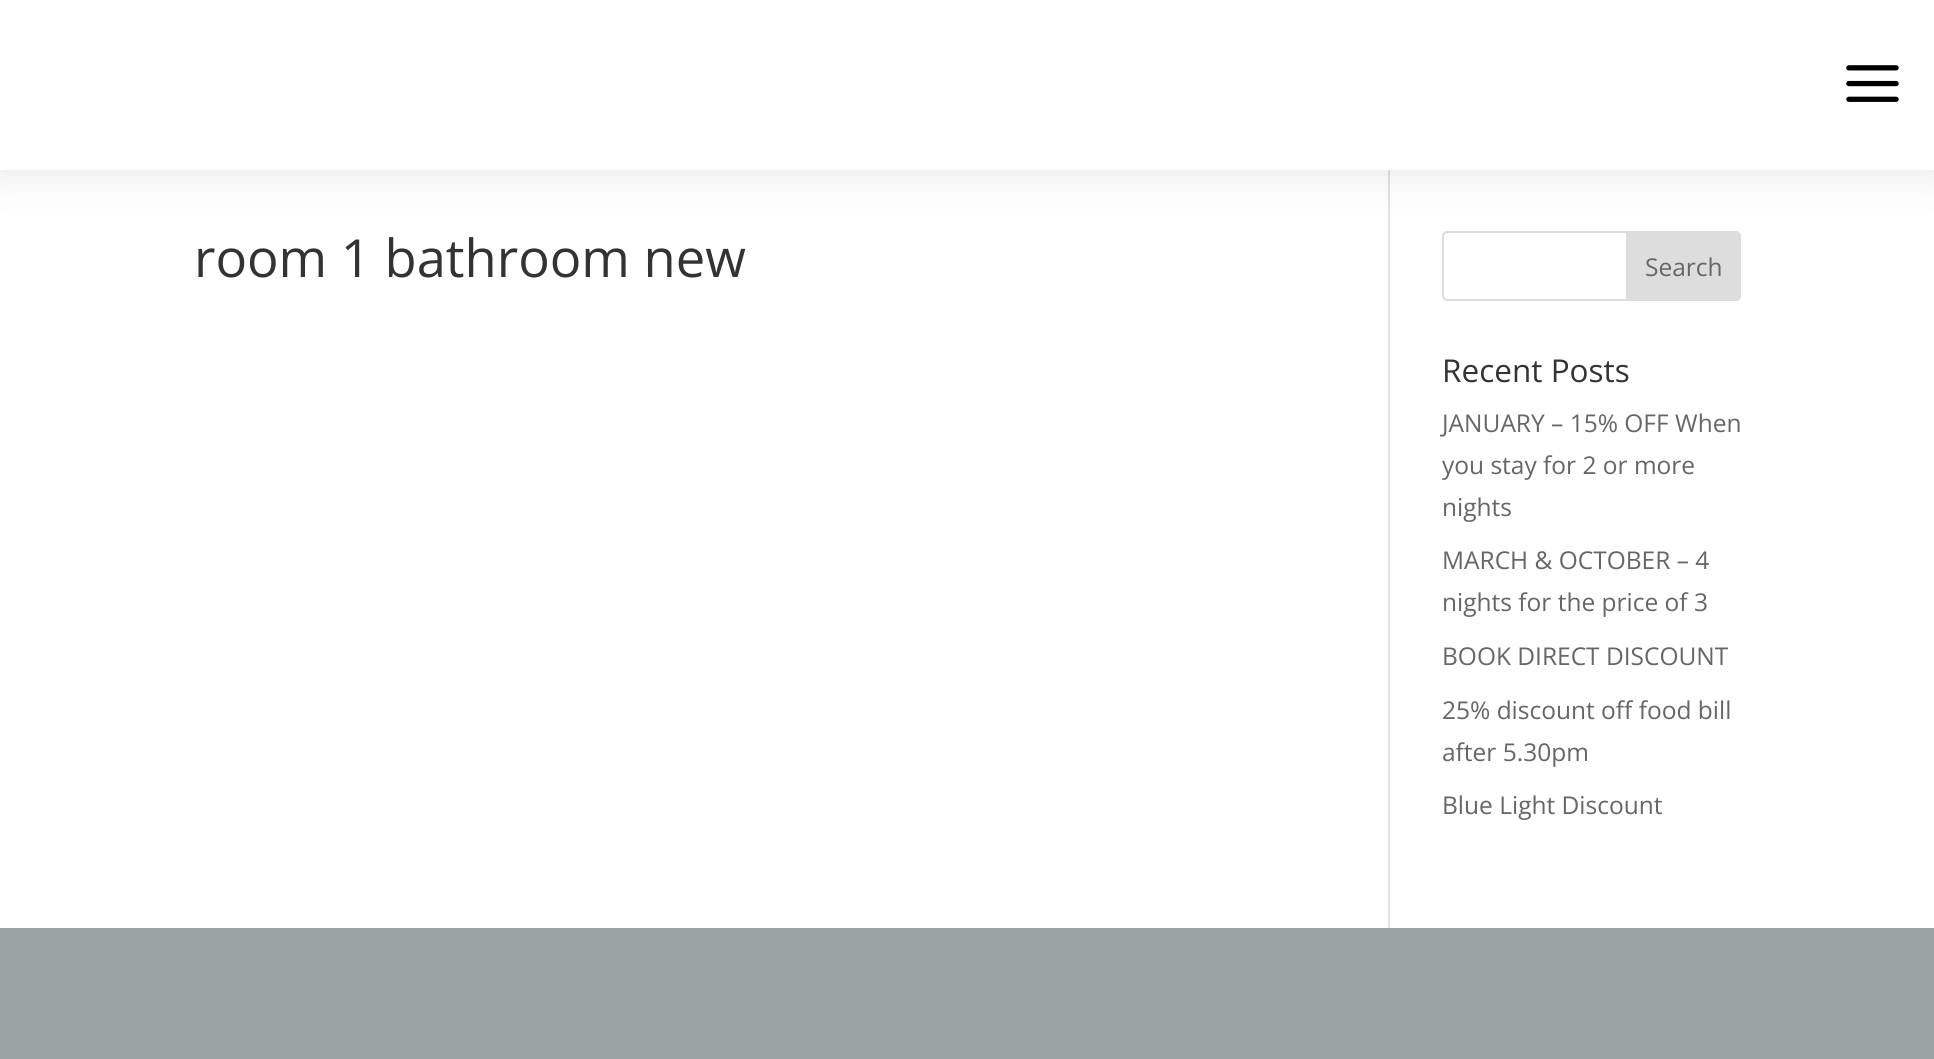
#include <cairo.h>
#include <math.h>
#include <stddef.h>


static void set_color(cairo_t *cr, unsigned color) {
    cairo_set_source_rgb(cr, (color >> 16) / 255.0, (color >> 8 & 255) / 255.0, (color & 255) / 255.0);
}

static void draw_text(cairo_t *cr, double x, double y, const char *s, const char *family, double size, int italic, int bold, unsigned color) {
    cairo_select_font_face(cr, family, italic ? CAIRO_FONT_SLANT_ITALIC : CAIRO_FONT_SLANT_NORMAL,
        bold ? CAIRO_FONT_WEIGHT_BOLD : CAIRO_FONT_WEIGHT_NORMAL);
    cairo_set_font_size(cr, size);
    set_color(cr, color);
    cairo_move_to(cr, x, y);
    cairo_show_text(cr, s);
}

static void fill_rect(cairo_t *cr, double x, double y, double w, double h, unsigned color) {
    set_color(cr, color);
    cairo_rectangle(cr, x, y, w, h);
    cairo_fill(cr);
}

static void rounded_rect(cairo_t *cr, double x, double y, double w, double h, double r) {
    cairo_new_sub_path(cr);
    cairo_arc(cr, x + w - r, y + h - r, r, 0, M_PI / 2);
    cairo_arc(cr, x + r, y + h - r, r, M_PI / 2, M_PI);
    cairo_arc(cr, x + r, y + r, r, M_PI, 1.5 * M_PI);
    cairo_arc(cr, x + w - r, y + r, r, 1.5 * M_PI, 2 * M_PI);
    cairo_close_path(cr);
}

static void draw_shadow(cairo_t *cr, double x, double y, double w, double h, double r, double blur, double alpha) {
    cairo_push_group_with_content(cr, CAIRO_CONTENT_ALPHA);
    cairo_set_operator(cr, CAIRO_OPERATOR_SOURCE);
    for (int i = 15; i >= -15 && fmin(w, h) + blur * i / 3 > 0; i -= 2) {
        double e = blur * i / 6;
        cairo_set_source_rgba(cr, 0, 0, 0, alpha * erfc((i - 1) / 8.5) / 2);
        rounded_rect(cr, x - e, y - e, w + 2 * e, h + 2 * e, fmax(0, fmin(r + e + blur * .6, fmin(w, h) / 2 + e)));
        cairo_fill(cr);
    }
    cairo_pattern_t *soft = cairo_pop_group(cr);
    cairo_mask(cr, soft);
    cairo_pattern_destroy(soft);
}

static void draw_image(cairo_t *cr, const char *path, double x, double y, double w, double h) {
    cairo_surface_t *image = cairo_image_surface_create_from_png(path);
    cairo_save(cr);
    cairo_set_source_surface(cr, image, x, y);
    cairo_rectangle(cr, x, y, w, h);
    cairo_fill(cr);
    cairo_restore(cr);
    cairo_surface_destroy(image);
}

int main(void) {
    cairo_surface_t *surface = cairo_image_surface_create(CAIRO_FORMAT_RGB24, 1934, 1059);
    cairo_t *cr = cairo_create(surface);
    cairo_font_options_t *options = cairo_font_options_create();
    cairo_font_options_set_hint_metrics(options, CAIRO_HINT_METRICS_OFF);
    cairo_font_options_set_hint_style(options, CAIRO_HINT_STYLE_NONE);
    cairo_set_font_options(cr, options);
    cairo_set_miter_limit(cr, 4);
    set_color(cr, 0x9BA3A5);
    cairo_paint(cr);
    fill_rect(cr, 0, 170, 1934, 758, 0xFFFFFF);
    fill_rect(cr, 1388, 170, 2, 758, 0xE2E2E2);
    rounded_rect(cr, 1443, 232, 297, 68, 4);
    set_color(cr, 0xDDDDDD);
    cairo_stroke(cr);
    cairo_new_path(cr);
    cairo_move_to(cr, 1627, 232);
    cairo_line_to(cr, 1736, 232);
    cairo_curve_to(cr, 1738, 232, 1740, 234, 1740, 236);
    cairo_line_to(cr, 1740, 296);
    cairo_curve_to(cr, 1740, 298, 1738, 300, 1736, 300);
    cairo_line_to(cr, 1627, 300);
    cairo_close_path(cr);
    cairo_fill_preserve(cr);
    cairo_stroke(cr);
    set_color(cr, 0x000000);
    draw_shadow(cr, 0, 4, 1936, 169, 0, 22, 0.1);
    fill_rect(cr, 0, 0, 1934, 170, 0xFFFFFF);
    draw_image(cr, "assets/img1.png", 1846, 65, 53, 37);
    draw_text(cr, 194, 277, "room 1 bathroom new", "Open Sans", 52.5, 0, 0, 0x333333);
    draw_text(cr, 1645, 276, "Search", "Open Sans", 24.5, 0, 0, 0x666666);
    draw_text(cr, 1442, 382, "Recent Posts", "Open Sans", 31.5, 0, 0, 0x333333);
    draw_text(cr, 1442, 432, "JANUARY – 15% OFF When", "Open Sans", 24.5, 0, 0, 0x666666);
    draw_text(cr, 1442, 474, "you stay for 2 or more", "Open Sans", 24.5, 0, 0, 0x666666);
    draw_text(cr, 1442, 516, "nights", "Open Sans", 24.5, 0, 0, 0x666666);
    draw_text(cr, 1442, 569, "MARCH & OCTOBER – 4", "Open Sans", 24.5, 0, 0, 0x666666);
    draw_text(cr, 1442, 611, "nights for the price of 3", "Open Sans", 24.5, 0, 0, 0x666666);
    draw_text(cr, 1442, 665, "BOOK DIRECT DISCOUNT", "Open Sans", 24.5, 0, 0, 0x666666);
    draw_text(cr, 1442, 719, "25% discount off food bill", "Open Sans", 24.5, 0, 0, 0x666666);
    draw_text(cr, 1442, 761, "after 5.30pm", "Open Sans", 24.5, 0, 0, 0x666666);
    draw_text(cr, 1442, 814, "Blue Light Discount", "Open Sans", 24.5, 0, 0, 0x666666);
    cairo_surface_write_to_png(surface, "output.png");
    cairo_font_options_destroy(options);
    cairo_destroy(cr);
    cairo_surface_destroy(surface);
    return 0;
}
